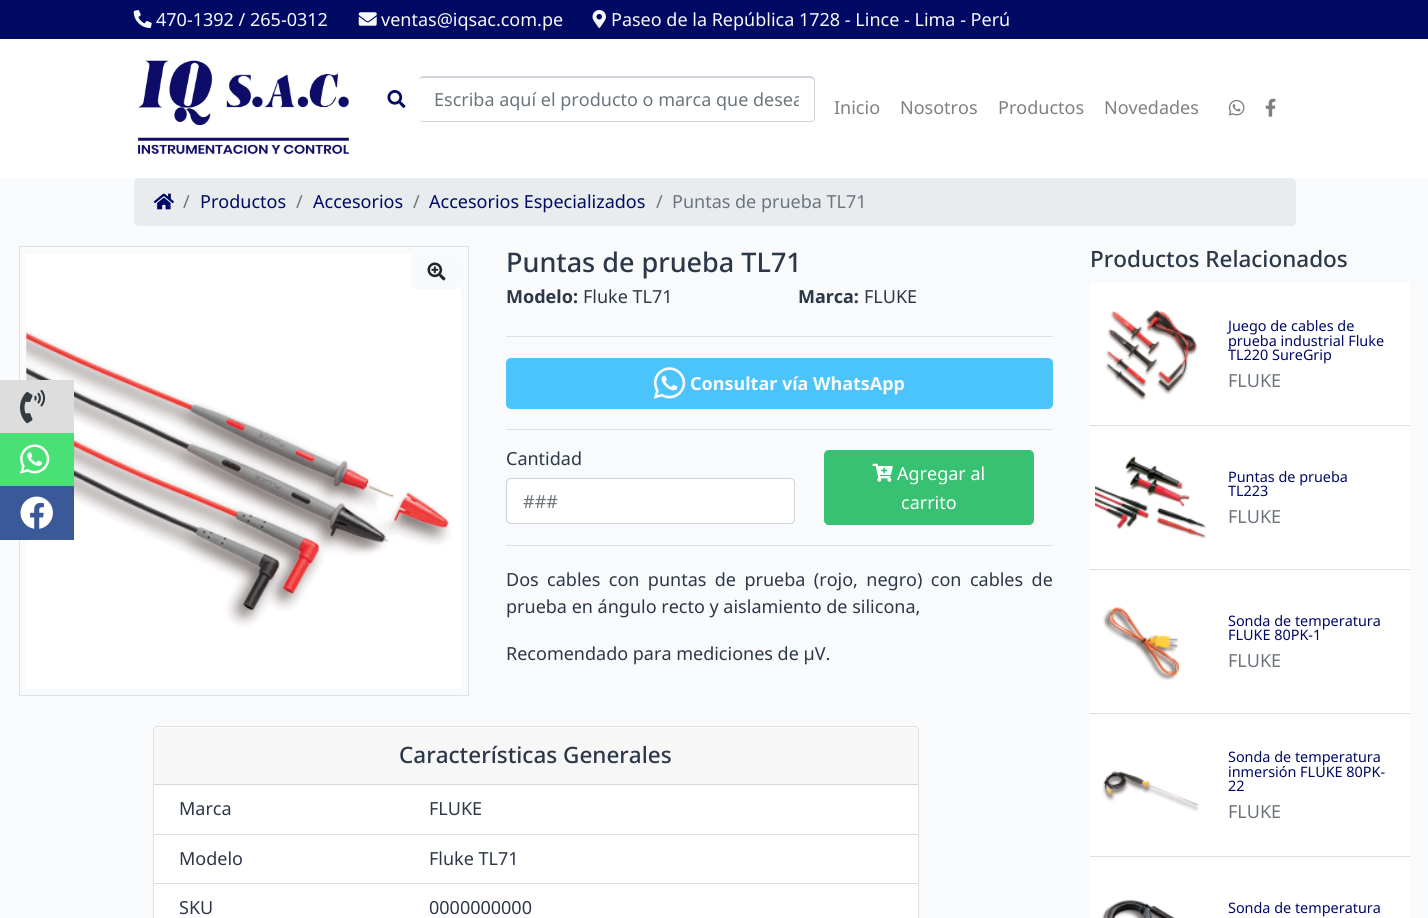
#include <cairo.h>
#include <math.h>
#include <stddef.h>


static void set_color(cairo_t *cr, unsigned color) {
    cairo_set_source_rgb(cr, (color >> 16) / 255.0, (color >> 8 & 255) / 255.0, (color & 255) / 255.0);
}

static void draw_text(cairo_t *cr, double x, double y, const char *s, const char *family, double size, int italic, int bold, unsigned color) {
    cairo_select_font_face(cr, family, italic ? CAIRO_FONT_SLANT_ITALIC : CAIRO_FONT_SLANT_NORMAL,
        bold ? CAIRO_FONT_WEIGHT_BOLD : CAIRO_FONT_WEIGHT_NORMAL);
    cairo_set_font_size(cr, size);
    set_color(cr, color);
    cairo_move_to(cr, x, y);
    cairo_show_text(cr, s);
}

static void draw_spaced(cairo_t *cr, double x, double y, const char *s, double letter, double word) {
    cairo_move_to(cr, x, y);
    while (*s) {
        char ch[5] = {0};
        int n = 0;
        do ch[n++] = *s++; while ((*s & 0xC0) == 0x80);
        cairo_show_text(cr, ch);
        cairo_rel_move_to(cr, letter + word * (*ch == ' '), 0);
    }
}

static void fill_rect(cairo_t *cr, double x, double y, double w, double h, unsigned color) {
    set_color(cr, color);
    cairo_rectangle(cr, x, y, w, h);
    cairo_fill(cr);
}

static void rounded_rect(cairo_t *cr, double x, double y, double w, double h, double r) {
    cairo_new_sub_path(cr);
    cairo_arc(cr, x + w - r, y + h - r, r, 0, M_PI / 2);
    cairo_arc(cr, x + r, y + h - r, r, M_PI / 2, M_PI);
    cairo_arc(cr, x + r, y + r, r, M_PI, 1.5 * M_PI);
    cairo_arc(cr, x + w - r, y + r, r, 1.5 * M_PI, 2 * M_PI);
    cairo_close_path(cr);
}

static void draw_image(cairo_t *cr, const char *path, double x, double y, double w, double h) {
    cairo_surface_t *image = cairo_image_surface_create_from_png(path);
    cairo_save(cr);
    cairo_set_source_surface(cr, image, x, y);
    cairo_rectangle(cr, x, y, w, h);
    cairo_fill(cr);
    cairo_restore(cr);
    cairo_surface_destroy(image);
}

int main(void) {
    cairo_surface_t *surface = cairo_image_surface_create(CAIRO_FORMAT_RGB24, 1428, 918);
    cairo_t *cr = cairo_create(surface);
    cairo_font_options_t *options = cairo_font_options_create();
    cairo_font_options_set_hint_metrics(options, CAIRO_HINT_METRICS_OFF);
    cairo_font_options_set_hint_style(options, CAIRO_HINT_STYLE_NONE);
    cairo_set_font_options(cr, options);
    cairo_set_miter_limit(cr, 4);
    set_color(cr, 0xF8FAFC);
    cairo_paint(cr);
    fill_rect(cr, 0, 0, 1428, 39, 0x000964);
    draw_image(cr, "assets/img1.png", 133, 10, 19, 18);
    draw_text(cr, 156, 26, "470-1392 /", "Noto Sans", 18, 0, 0, 0xF8F9FA);
    draw_text(cr, 250, 26, "265-0312", "Noto Sans", 18, 0, 0, 0xF8F9FA);
    draw_image(cr, "assets/img2.png", 358, 12, 19, 14);
    draw_text(cr, 381, 26, "ventas@iqsac.com.pe", "Noto Sans", 18, 0, 0, 0xF8F9FA);
    draw_image(cr, "assets/img3.png", 592, 10, 14, 18);
    draw_text(cr, 611, 26, "Paseo de la República 1728 - Lince - Lima - Perú", "Noto Sans", 18, 0, 0, 0xF8F9FA);
    fill_rect(cr, 0, 39, 1428, 139, 0xFFFFFF);
    draw_image(cr, "assets/img4.png", 138, 60, 211, 95);
    draw_image(cr, "assets/img5.png", 387, 90, 19, 18);
    set_color(cr, 0xCED4DA);
    cairo_set_fill_rule(cr, CAIRO_FILL_RULE_EVEN_ODD);
    cairo_new_path(cr);
    cairo_move_to(cr, 424, 76);
    cairo_line_to(cr, 810, 76);
    cairo_curve_to(cr, 813, 76, 815, 78, 815, 81);
    cairo_line_to(cr, 815, 118);
    cairo_curve_to(cr, 815, 120, 813, 122, 810, 122);
    cairo_line_to(cr, 424, 122);
    cairo_curve_to(cr, 421, 122, 419, 120, 419, 118);
    cairo_line_to(cr, 419, 81);
    cairo_curve_to(cr, 419, 78, 421, 76, 424, 76);
    cairo_close_path(cr);
    cairo_move_to(cr, 424, 78);
    cairo_line_to(cr, 810, 78);
    cairo_curve_to(cr, 812, 78, 814, 79, 814, 81);
    cairo_line_to(cr, 814, 118);
    cairo_curve_to(cr, 814, 120, 812, 121, 810, 121);
    cairo_line_to(cr, 424, 121);
    cairo_curve_to(cr, 421, 121, 419, 120, 419, 118);
    cairo_line_to(cr, 419, 81);
    cairo_curve_to(cr, 419, 79, 421, 78, 424, 78);
    cairo_close_path(cr);
    cairo_fill(cr);
    cairo_save(cr);
    cairo_set_fill_rule(cr, CAIRO_FILL_RULE_WINDING);
    cairo_rectangle(cr, 434, 88, 365, 23);
    cairo_clip(cr);
    draw_text(cr, 434, 106, "Escriba aquí el producto o marca que desea", "Noto Sans", 18, 0, 0, 0x6C757D);
    cairo_restore(cr);
    draw_text(cr, 834, 114, "Inicio", "Noto Sans", 18, 0, 0, 0x808080);
    draw_text(cr, 900, 114, "Nosotros", "Noto Sans", 18, 0, 0, 0x808080);
    draw_text(cr, 998, 114, "Productos", "Noto Sans", 18, 0, 0, 0x808080);
    draw_text(cr, 1104, 114, "Novedades", "Noto Sans", 18, 0, 0, 0x808080);
    draw_image(cr, "assets/img6.png", 1228, 99, 17, 17);
    draw_image(cr, "assets/img7.png", 1265, 98, 11, 19);
    cairo_rectangle(cr, 19.5, 246.5, 449, 449);
    set_color(cr, 0xDEE2E6);
    cairo_set_line_width(cr, 1);
    cairo_stroke(cr);
    draw_image(cr, "assets/img12.png", 26, 254, 435, 435);
    fill_rect(cr, 0, 380, 74, 53, 0xDDDDDD);
    draw_image(cr, "assets/img8.png", 20, 389, 26, 35);
    fill_rect(cr, 0, 433, 74, 53, 0x49E176);
    draw_image(cr, "assets/img9.png", 20, 444, 30, 30);
    fill_rect(cr, 0, 486, 74, 54, 0x3B5998);
    draw_image(cr, "assets/img10.png", 20, 496, 33, 33);
    set_color(cr, 0xE9ECEF);
    rounded_rect(cr, 134, 178, 1162, 48, 5);
    cairo_fill(cr);
    draw_image(cr, "assets/img11.png", 153, 193, 21, 17);
    draw_text(cr, 183, 208, "/", "Noto Sans", 18, 0, 0, 0x6C757D);
    draw_text(cr, 200, 208, "Productos", "Noto Sans", 18, 0, 0, 0x000964);
    draw_text(cr, 296, 208, "/", "Noto Sans", 18, 0, 0, 0x6C757D);
    draw_text(cr, 313, 208, "Accesorios", "Noto Sans", 18, 0, 0, 0x000964);
    draw_text(cr, 413, 208, "/", "Noto Sans", 18, 0, 0, 0x6C757D);
    draw_text(cr, 429, 208, "Accesorios Especializados", "Noto Sans", 18, 0, 0, 0x000964);
    draw_text(cr, 656, 208, "/", "Noto Sans", 18, 0, 0, 0x6C757D);
    draw_text(cr, 672, 208, "Puntas de prueba TL71", "Noto Sans", 18, 0, 0, 0x6C757D);
    set_color(cr, 0xF8F9FA);
    rounded_rect(cr, 411, 254, 50, 35, 5);
    cairo_fill(cr);
    draw_image(cr, "assets/img13.png", 427, 262, 19, 19);
    draw_text(cr, 506, 272, "Puntas de prueba TL71", "Noto Sans Medium", 27, 0, 0, 0x2D3748);
    draw_text(cr, 506, 303, "Modelo:", "Noto Sans", 18, 0, 1, 0x2D3748);
    draw_text(cr, 583, 303, "Fluke TL71", "Noto Sans", 18, 0, 0, 0x2D3748);
    draw_text(cr, 798, 303, "Marca:", "Noto Sans", 18, 0, 1, 0x2D3748);
    draw_text(cr, 864, 303, "FLUKE", "Noto Sans", 18, 0, 0, 0x2D3748);
    fill_rect(cr, 506, 336, 547, 1, 0xDFE1E3);
    set_color(cr, 0x4AC4FA);
    rounded_rect(cr, 506, 358, 547, 51, 5);
    cairo_fill(cr);
    draw_image(cr, "assets/img14.png", 653, 367, 33, 32);
    draw_text(cr, 690, 390, "Consultar vía WhatsApp", "Noto Sans", 18, 0, 1, 0xF8F9FA);
    fill_rect(cr, 506, 429, 547, 1, 0xDFE1E3);
    draw_text(cr, 506, 465, "Cantidad", "Noto Sans", 18, 0, 0, 0x2D3748);
    set_color(cr, 0xFFFFFF);
    rounded_rect(cr, 508, 479, 286, 44, 4);
    cairo_fill(cr);
    rounded_rect(cr, 506.5, 478.5, 288, 45, 4.5);
    set_color(cr, 0xCED4DA);
    cairo_stroke(cr);
    draw_text(cr, 523, 508, "###", "Noto Sans", 18, 0, 0, 0x6C757D);
    set_color(cr, 0x38C172);
    rounded_rect(cr, 824.5, 450.5, 209, 74, 4.5);
    cairo_fill_preserve(cr);
    cairo_stroke(cr);
    draw_image(cr, "assets/img15.png", 872, 463, 21, 19);
    draw_text(cr, 897, 480, "Agregar al", "Noto Sans", 18, 0, 0, 0xFFFFFF);
    draw_text(cr, 901, 509, "carrito", "Noto Sans", 18, 0, 0, 0xFFFFFF);
    fill_rect(cr, 506, 545, 547, 1, 0xDFE1E3);
    set_color(cr, 0x2D3748);
    draw_spaced(cr, 506, 586, "Dos cables con puntas de prueba (rojo, negro) con cables de", 0, 3.75);
    draw_text(cr, 506, 613, "prueba en ángulo recto y aislamiento de silicona,", "Noto Sans", 18, 0, 0, 0x2D3748);
    draw_text(cr, 506, 660, "Recomendado para mediciones de µV.", "Noto Sans", 18, 0, 0, 0x2D3748);
    set_color(cr, 0xFFFFFF);
    rounded_rect(cr, 153, 726, 766, 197, 5);
    cairo_fill(cr);
    rounded_rect(cr, 153.5, 726.5, 765, 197, 4.5);
    cairo_set_source_rgba(cr, 0, 0, 0, 0.12);
    cairo_stroke(cr);
    set_color(cr, 0xF7F7F7);
    cairo_new_path(cr);
    cairo_move_to(cr, 158, 728);
    cairo_line_to(cr, 914, 728);
    cairo_curve_to(cr, 916, 728, 918, 730, 918, 732);
    cairo_line_to(cr, 918, 785);
    cairo_line_to(cr, 154, 785);
    cairo_line_to(cr, 154, 732);
    cairo_curve_to(cr, 154, 730, 156, 728, 158, 728);
    cairo_close_path(cr);
    cairo_fill(cr);
    fill_rect(cr, 154, 784, 764, 1, 0xD8D8D8);
    draw_text(cr, 399, 763, "Características Generales", "Noto Sans Medium", 22.5, 0, 0, 0x2D3748);
    fill_rect(cr, 154, 834, 764, 1, 0xDFDFDF);
    draw_text(cr, 179, 815, "Marca", "Noto Sans", 18, 0, 0, 0x2D3748);
    draw_text(cr, 429, 815, "FLUKE", "Noto Sans", 18, 0, 0, 0x2D3748);
    fill_rect(cr, 154, 883, 764, 1, 0xDFDFDF);
    draw_text(cr, 179, 865, "Modelo", "Noto Sans", 18, 0, 0, 0x2D3748);
    draw_text(cr, 429, 865, "Fluke TL71", "Noto Sans", 18, 0, 0, 0x2D3748);
    draw_text(cr, 179, 914, "SKU", "Noto Sans", 18, 0, 0, 0x2D3748);
    draw_text(cr, 429, 914, "0000000000", "Noto Sans", 18, 0, 0, 0x2D3748);
    draw_text(cr, 1090, 267, "Productos Relacionados", "Noto Sans Medium", 22.5, 0, 0, 0x2D3748);
    fill_rect(cr, 1090, 283, 320, 142, 0xFFFFFF);
    fill_rect(cr, 1090, 425, 320, 1, 0xDFDFDF);
    draw_image(cr, "assets/img16.png", 1105, 309, 93, 92);
    draw_text(cr, 1228, 331, "Juego de cables de", "Noto Sans", 14.4, 0, 0, 0x000964);
    draw_text(cr, 1228, 346, "prueba industrial Fluke", "Noto Sans", 14.4, 0, 0, 0x000964);
    draw_text(cr, 1228, 360, "TL220 SureGrip", "Noto Sans", 14.4, 0, 0, 0x000964);
    draw_text(cr, 1228, 387, "FLUKE", "Noto Sans", 18, 0, 0, 0x6C757D);
    fill_rect(cr, 1090, 426, 320, 143, 0xFFFFFF);
    fill_rect(cr, 1090, 569, 320, 1, 0xDFDFDF);
    draw_image(cr, "assets/img17.png", 1095, 456, 112, 83);
    draw_text(cr, 1228, 482, "Puntas de prueba", "Noto Sans", 14.4, 0, 0, 0x000964);
    draw_text(cr, 1228, 496, "TL223", "Noto Sans", 14.4, 0, 0, 0x000964);
    draw_text(cr, 1228, 523, "FLUKE", "Noto Sans", 18, 0, 0, 0x6C757D);
    fill_rect(cr, 1090, 570, 320, 143, 0xFFFFFF);
    fill_rect(cr, 1090, 713, 320, 1, 0xDFDFDF);
    draw_image(cr, "assets/img18.png", 1102, 607, 78, 74);
    draw_text(cr, 1228, 626, "Sonda de temperatura", "Noto Sans", 14.4, 0, 0, 0x000964);
    draw_text(cr, 1228, 640, "FLUKE 80PK-1", "Noto Sans", 14.4, 0, 0, 0x000964);
    draw_text(cr, 1228, 667, "FLUKE", "Noto Sans", 18, 0, 0, 0x6C757D);
    fill_rect(cr, 1090, 714, 320, 204, 0xFFFFFF);
    fill_rect(cr, 1090, 856, 320, 1, 0xDFDFDF);
    draw_image(cr, "assets/img19.png", 1102, 771, 97, 41);
    draw_text(cr, 1228, 762, "Sonda de temperatura", "Noto Sans", 14.4, 0, 0, 0x000964);
    draw_text(cr, 1228, 777, "inmersión FLUKE 80PK-", "Noto Sans", 14.4, 0, 0, 0x000964);
    draw_text(cr, 1228, 791, "22", "Noto Sans", 14.4, 0, 0, 0x000964);
    draw_text(cr, 1228, 818, "FLUKE", "Noto Sans", 18, 0, 0, 0x6C757D);
    draw_image(cr, "assets/img20.png", 1102, 899, 74, 19);
    draw_text(cr, 1228, 913, "Sonda de temperatura", "Noto Sans", 14.4, 0, 0, 0x000964);
    cairo_surface_write_to_png(surface, "output.png");
    cairo_font_options_destroy(options);
    cairo_destroy(cr);
    cairo_surface_destroy(surface);
    return 0;
}
